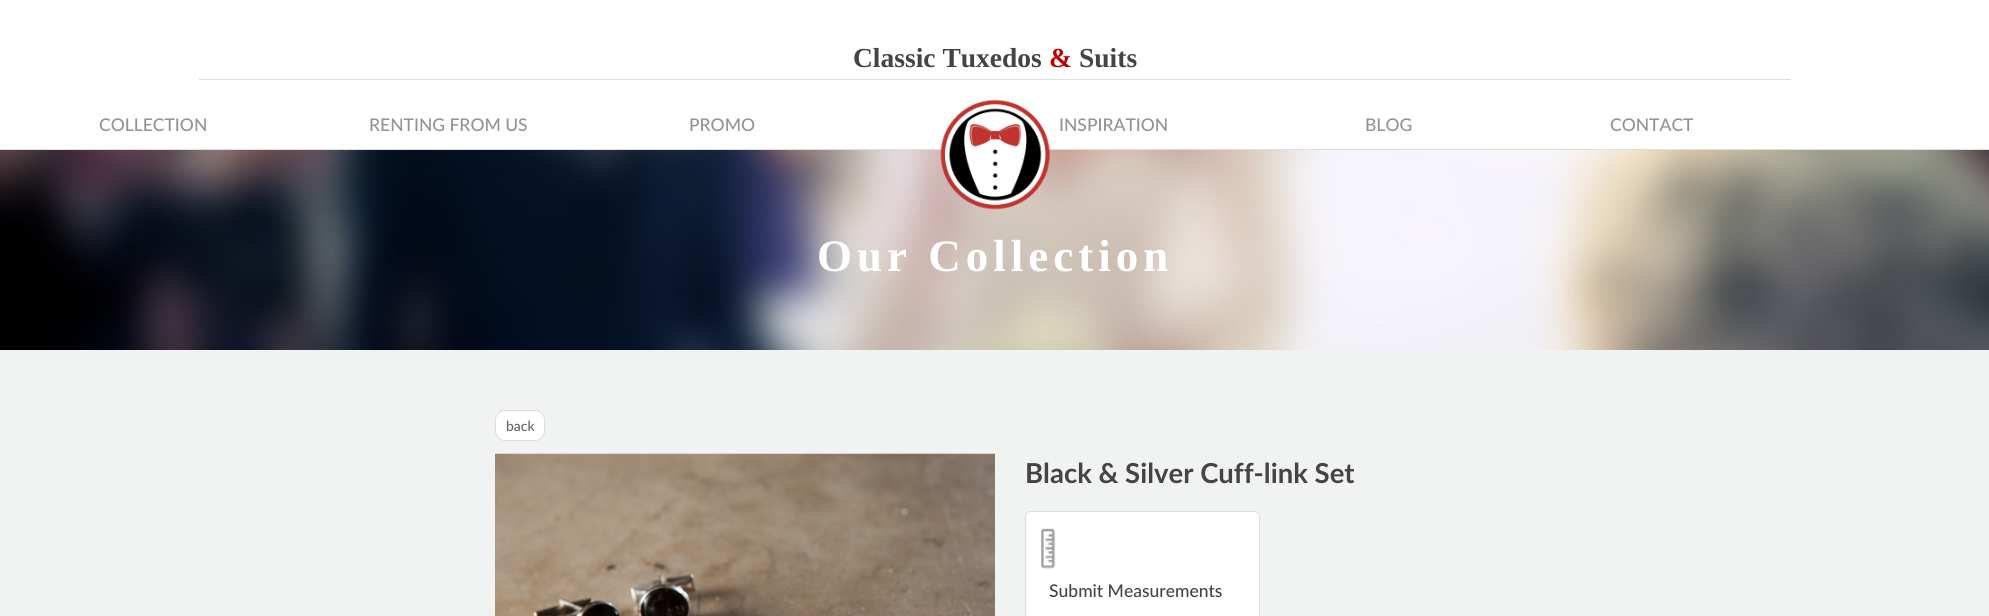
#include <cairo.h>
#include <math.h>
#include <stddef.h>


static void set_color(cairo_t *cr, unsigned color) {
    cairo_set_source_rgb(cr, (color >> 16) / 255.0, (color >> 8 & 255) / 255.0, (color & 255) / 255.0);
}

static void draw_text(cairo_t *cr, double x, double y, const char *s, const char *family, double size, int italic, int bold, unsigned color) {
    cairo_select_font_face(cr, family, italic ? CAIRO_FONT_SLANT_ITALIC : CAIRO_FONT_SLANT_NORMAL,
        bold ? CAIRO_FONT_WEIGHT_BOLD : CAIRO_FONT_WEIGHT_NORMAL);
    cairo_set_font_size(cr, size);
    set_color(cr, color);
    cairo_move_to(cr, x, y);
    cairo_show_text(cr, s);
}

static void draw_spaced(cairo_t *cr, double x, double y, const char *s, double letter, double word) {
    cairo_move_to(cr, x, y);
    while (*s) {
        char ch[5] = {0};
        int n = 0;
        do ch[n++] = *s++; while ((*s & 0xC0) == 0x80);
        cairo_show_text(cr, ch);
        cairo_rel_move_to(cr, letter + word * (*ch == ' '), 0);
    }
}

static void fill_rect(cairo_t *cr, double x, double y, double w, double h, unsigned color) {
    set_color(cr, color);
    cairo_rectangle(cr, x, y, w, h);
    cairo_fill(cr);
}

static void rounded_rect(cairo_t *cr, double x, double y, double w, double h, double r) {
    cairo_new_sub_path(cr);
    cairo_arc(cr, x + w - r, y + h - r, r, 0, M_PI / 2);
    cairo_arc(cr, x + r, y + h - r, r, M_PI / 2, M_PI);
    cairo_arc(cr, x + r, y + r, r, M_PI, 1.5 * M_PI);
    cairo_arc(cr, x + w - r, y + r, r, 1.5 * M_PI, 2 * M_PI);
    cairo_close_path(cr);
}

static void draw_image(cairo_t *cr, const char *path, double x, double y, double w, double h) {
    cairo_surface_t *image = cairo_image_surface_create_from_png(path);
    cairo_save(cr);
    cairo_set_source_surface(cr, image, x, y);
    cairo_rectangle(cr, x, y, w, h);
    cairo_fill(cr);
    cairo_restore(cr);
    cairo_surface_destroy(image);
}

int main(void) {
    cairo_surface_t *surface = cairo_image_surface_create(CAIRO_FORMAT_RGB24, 1989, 616);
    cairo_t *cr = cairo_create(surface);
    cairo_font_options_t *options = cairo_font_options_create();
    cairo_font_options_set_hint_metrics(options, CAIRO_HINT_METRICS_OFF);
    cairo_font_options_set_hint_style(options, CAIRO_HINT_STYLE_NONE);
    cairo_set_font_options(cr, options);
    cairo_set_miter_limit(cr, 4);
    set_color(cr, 0xF1F2F2);
    cairo_paint(cr);
    fill_rect(cr, 0, 0, 1989, 149, 0xFFFFFF);
    fill_rect(cr, 0, 149, 1989, 1, 0xDDDDDD);
    fill_rect(cr, 199, 79, 1592, 1, 0xDDDDDD);
    draw_text(cr, 853, 67, "Classic Tuxedos", "Liberation Serif", 27.5, 0, 1, 0x444444);
    draw_text(cr, 1049, 67, "&", "Liberation Serif", 27.5, 0, 1, 0xBC0000);
    draw_text(cr, 1079, 67, "Suits", "Liberation Serif", 27.5, 0, 1, 0x444444);
    draw_image(cr, "assets/img2.png", 0, 150, 1989, 200);
    draw_image(cr, "assets/img1.png", 940, 99, 110, 111);
    draw_text(cr, 99, 131, "COLLECTION", "Lato Medium", 17.5, 0, 0, 0x939397);
    draw_text(cr, 369, 131, "RENTING FROM US", "Lato Medium", 17.5, 0, 0, 0x939397);
    draw_text(cr, 689, 131, "PROMO", "Lato Medium", 17.5, 0, 0, 0x939397);
    draw_text(cr, 1059, 131, "INSPIRATION", "Lato Medium", 17.5, 0, 0, 0x939397);
    draw_text(cr, 1365, 131, "BLOG", "Lato Medium", 17.5, 0, 0, 0x939397);
    draw_text(cr, 1610, 131, "CONTACT", "Lato Medium", 17.5, 0, 0, 0x939397);
    cairo_select_font_face(cr, "Liberation Serif", CAIRO_FONT_SLANT_NORMAL, CAIRO_FONT_WEIGHT_BOLD);
    cairo_set_font_size(cr, 45);
    set_color(cr, 0xFFFFFF);
    draw_spaced(cr, 817, 271, "Our Collection", 5, 0);
    rounded_rect(cr, 495.5, 410.5, 49, 30, 9.5);
    cairo_fill_preserve(cr);
    set_color(cr, 0xDDDDDD);
    cairo_set_line_width(cr, 1);
    cairo_stroke(cr);
    draw_text(cr, 506, 431, "back", "Lato Medium", 14, 0, 0, 0x666666);
    draw_image(cr, "assets/img3.png", 495, 453, 500, 163);
    draw_text(cr, 1025, 483, "Black & Silver Cuff-link Set", "Lato", 27.5, 0, 1, 0x444444);
    set_color(cr, 0xFFFFFF);
    rounded_rect(cr, 1025.5, 511.5, 234, 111, 5.5);
    cairo_fill_preserve(cr);
    set_color(cr, 0xDDDDDD);
    cairo_stroke(cr);
    draw_image(cr, "assets/img4.png", 1041, 528, 15, 41);
    draw_text(cr, 1049, 597, "Submit Measurements", "Lato Medium", 17.5, 0, 0, 0x444444);
    cairo_surface_write_to_png(surface, "output.png");
    cairo_font_options_destroy(options);
    cairo_destroy(cr);
    cairo_surface_destroy(surface);
    return 0;
}
